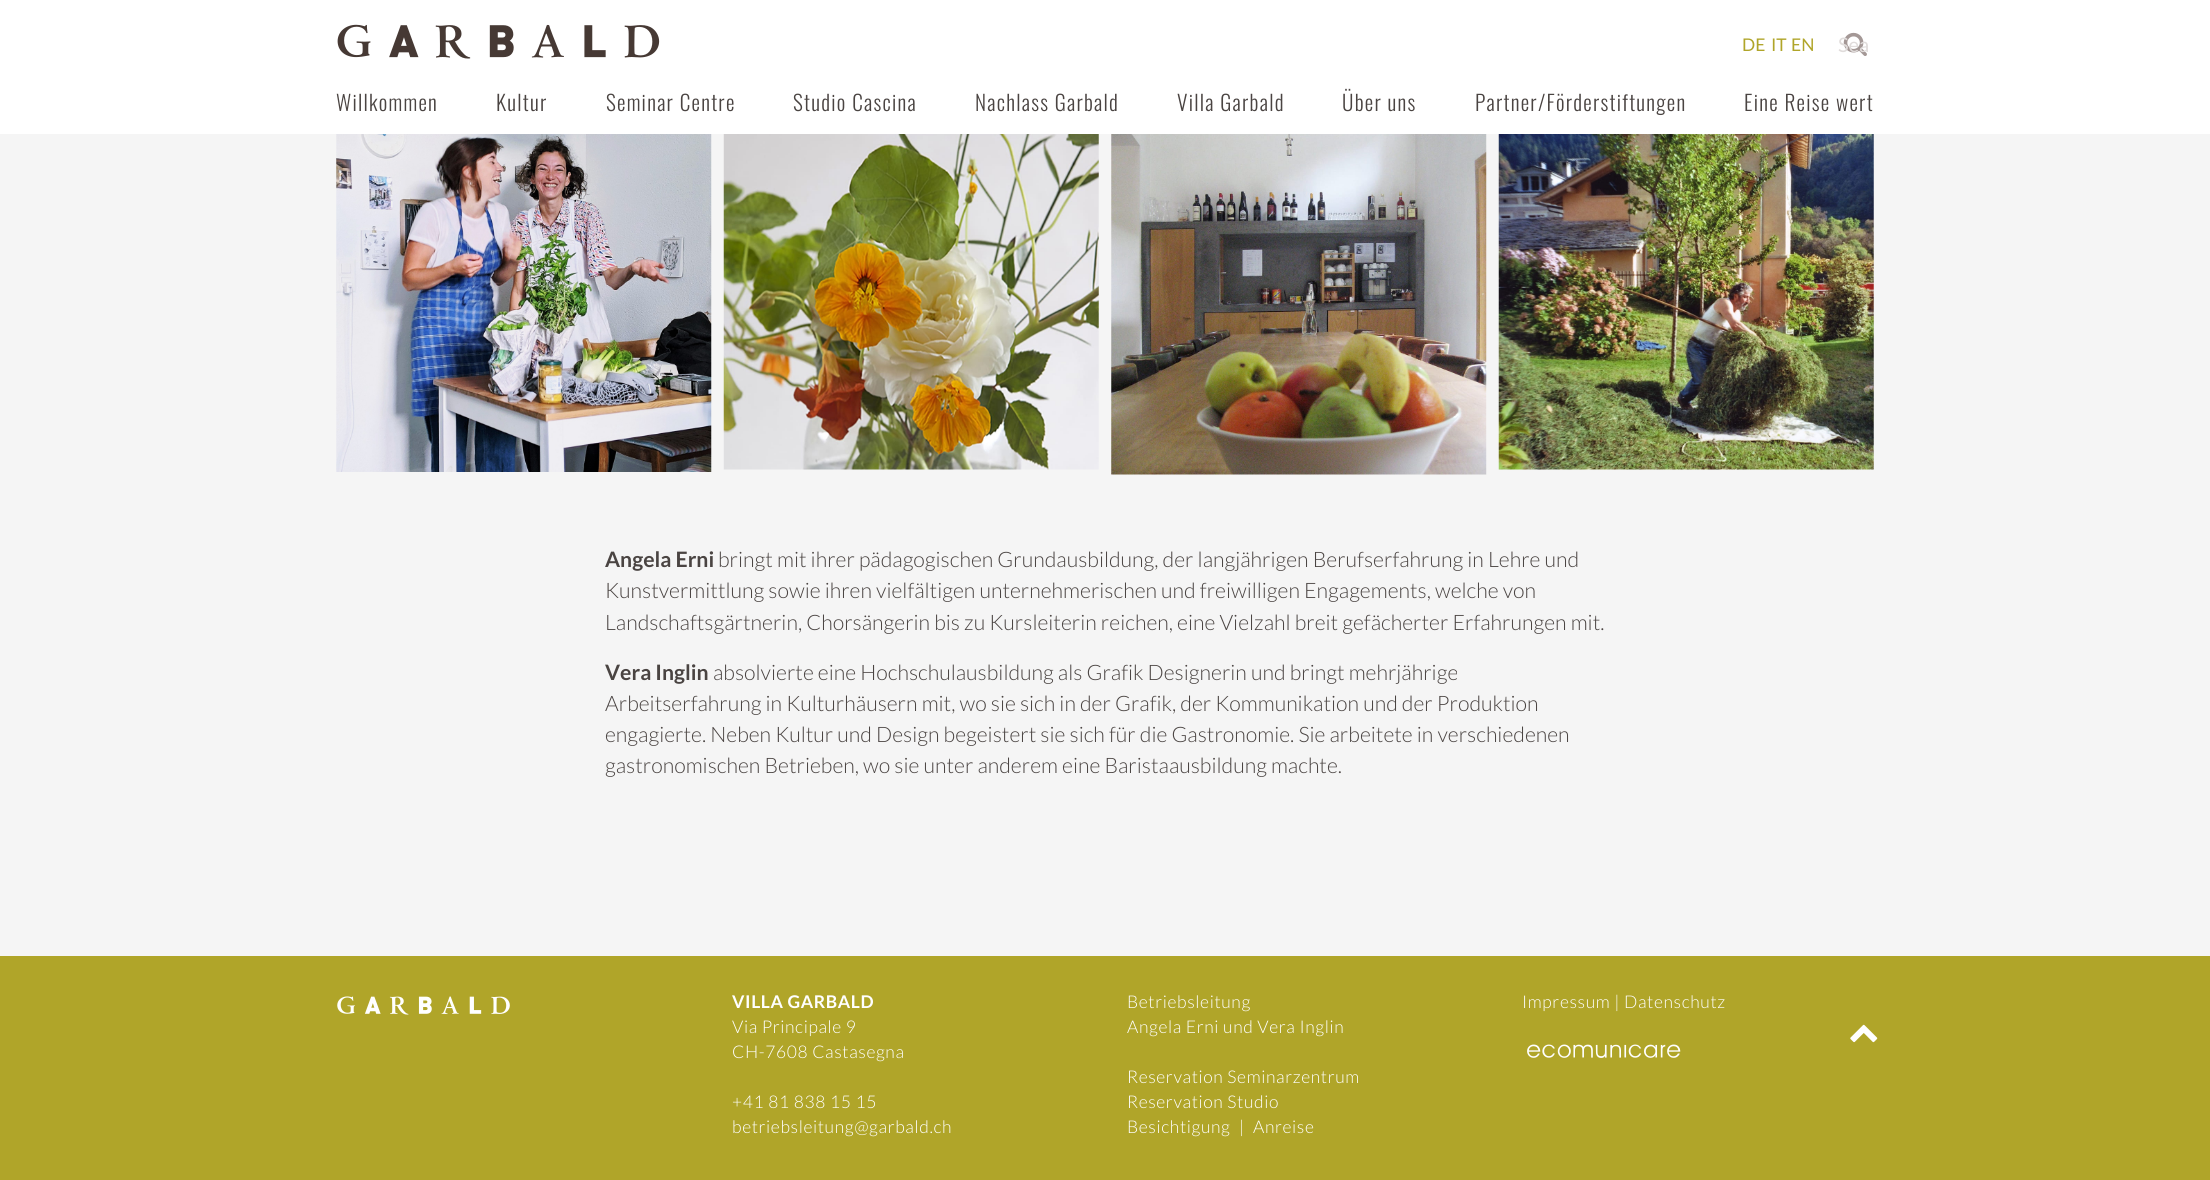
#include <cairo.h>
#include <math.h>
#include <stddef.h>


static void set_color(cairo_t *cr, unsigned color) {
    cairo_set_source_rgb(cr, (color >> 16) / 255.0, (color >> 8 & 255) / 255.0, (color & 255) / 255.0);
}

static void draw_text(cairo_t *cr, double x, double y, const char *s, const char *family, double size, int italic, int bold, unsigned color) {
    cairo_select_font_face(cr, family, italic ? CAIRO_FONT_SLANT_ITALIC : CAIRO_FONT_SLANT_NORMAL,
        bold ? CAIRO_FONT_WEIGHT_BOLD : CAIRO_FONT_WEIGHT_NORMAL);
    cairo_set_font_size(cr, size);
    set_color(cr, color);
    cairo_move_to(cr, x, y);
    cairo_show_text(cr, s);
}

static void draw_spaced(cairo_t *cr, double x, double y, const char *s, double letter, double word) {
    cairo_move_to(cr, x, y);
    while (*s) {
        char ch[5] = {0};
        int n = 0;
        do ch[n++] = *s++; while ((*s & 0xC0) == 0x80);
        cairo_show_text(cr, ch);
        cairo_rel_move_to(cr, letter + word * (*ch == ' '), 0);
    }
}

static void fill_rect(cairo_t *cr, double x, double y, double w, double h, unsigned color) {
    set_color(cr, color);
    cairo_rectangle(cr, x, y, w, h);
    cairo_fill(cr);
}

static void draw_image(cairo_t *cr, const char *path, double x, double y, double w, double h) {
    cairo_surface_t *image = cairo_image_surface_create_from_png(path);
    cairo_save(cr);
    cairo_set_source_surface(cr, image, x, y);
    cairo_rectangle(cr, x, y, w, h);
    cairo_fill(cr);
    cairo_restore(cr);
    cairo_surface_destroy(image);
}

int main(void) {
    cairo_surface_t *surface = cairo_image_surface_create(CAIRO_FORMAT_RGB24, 2210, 1180);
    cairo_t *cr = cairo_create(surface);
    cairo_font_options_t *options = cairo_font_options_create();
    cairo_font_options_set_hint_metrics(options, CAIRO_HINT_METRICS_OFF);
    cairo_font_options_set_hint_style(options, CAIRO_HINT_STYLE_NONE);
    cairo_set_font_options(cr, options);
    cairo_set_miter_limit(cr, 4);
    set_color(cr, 0xF5F5F5);
    cairo_paint(cr);
    fill_rect(cr, 0, 0, 2210, 134, 0xFFFFFF);
    draw_image(cr, "assets/img1.png", 337, 24, 323, 35);
    draw_text(cr, 1742, 51, "DE", "Lato", 17.5, 0, 0, 0xB0A529);
    draw_text(cr, 1771, 51, "IT", "Lato", 17.5, 0, 0, 0xB0A529);
    draw_text(cr, 1791, 51, "EN", "Lato", 17.5, 0, 0, 0xB0A529);
    draw_image(cr, "assets/img2.png", 1843, 32, 24, 24);
    draw_text(cr, 1838, 52, "Sea", "Lato", 20, 0, 0, 0xE0DCDB);
    cairo_select_font_face(cr, "Oswald Light", CAIRO_FONT_SLANT_NORMAL, CAIRO_FONT_WEIGHT_NORMAL);
    cairo_set_font_size(cr, 21.25);
    set_color(cr, 0x4A4442);
    draw_spaced(cr, 336, 111, "Willkommen", 1.25, 0);
    draw_spaced(cr, 496, 111, "Kultur", 1.25, 0);
    draw_spaced(cr, 606, 111, "Seminar Centre", 1.25, 0);
    draw_spaced(cr, 793, 111, "Studio Cascina", 1.25, 0);
    draw_spaced(cr, 975, 111, "Nachlass Garbald", 1.25, 0);
    draw_spaced(cr, 1177, 111, "Villa Garbald", 1.25, 0);
    draw_spaced(cr, 1342, 111, "Über uns", 1.25, 0);
    draw_spaced(cr, 1475, 111, "Partner/Förderstiftungen", 1.25, 0);
    draw_spaced(cr, 1744, 111, "Eine Reise wert", 1.25, 0);
    draw_image(cr, "assets/img3.png", 336, 134, 376, 338);
    draw_image(cr, "assets/img4.png", 723, 134, 376, 336);
    draw_image(cr, "assets/img5.png", 1111, 134, 376, 341);
    draw_image(cr, "assets/img6.png", 1498, 134, 376, 336);
    draw_text(cr, 605, 567, "Angela Erni", "Lato", 21.25, 0, 1, 0x4A4442);
    draw_text(cr, 718, 567, "bringt mit ihrer pädagogischen Grundausbildung, der langjährigen Berufserfahrung in Lehre und", "Lato Light", 21.25, 0, 0, 0x4A4442);
    draw_text(cr, 605, 598, "Kunstvermittlung sowie ihren vielfältigen unternehmerischen und freiwilligen Engagements, welche von", "Lato Light", 21.25, 0, 0, 0x4A4442);
    draw_text(cr, 605, 630, "Landschaftsgärtnerin, Chorsängerin bis zu Kursleiterin reichen, eine Vielzahl breit gefächerter Erfahrungen mit.", "Lato Light", 21.25, 0, 0, 0x4A4442);
    draw_text(cr, 605, 680, "Vera Inglin", "Lato", 21.25, 0, 1, 0x4A4442);
    draw_text(cr, 713, 680, "absolvierte eine Hochschulausbildung als Grafik Designerin und bringt mehrjährige", "Lato Light", 21.25, 0, 0, 0x4A4442);
    draw_text(cr, 605, 711, "Arbeitserfahrung in Kulturhäusern mit, wo sie sich in der Grafik, der Kommunikation und der Produktion", "Lato Light", 21.25, 0, 0, 0x4A4442);
    draw_text(cr, 605, 742, "engagierte. Neben Kultur und Design begeistert sie sich für die Gastronomie. Sie arbeitete in verschiedenen", "Lato Light", 21.25, 0, 0, 0x4A4442);
    draw_text(cr, 605, 773, "gastronomischen Betrieben, wo sie unter anderem eine Baristaausbildung machte.", "Lato Light", 21.25, 0, 0, 0x4A4442);
    fill_rect(cr, 0, 956, 2210, 224, 0xB0A529);
    draw_image(cr, "assets/img7.png", 337, 996, 173, 19);
    cairo_select_font_face(cr, "Lato", CAIRO_FONT_SLANT_NORMAL, CAIRO_FONT_WEIGHT_BOLD);
    cairo_set_font_size(cr, 17.5);
    set_color(cr, 0xFFFFFF);
    draw_spaced(cr, 732, 1008, "VILLA GARBALD", 0.6, 0);
    cairo_select_font_face(cr, "Lato Light", CAIRO_FONT_SLANT_NORMAL, CAIRO_FONT_WEIGHT_NORMAL);
    draw_spaced(cr, 732, 1033, "Via Principale 9", 0.6, 0);
    draw_spaced(cr, 732, 1058, "CH-7608 Castasegna", 0.6, 0);
    draw_spaced(cr, 732, 1108, "+41 81 838 15 15", 0.6, 0);
    draw_spaced(cr, 732, 1133, "betriebsleitung@garbald.ch", 0.6, 0);
    draw_spaced(cr, 1127, 1008, "Betriebsleitung", 0.6, 0);
    draw_spaced(cr, 1127, 1033, "Angela Erni und Vera Inglin", 0.6, 0);
    draw_spaced(cr, 1127, 1083, "Reservation Seminarzentrum", 0.6, 0);
    draw_spaced(cr, 1127, 1108, "Reservation Studio", 0.6, 0);
    draw_spaced(cr, 1127, 1133, "Besichtigung", 0.6, 0);
    draw_spaced(cr, 1239, 1133, "|", 0.6, 0);
    draw_spaced(cr, 1253, 1133, "Anreise", 0.6, 0);
    draw_spaced(cr, 1522, 1008, "Impressum | Datenschutz", 0.6, 0);
    draw_image(cr, "assets/img8.png", 1527, 1044, 154, 14);
    draw_image(cr, "assets/img9.png", 1850, 1024, 28, 19);
    cairo_surface_write_to_png(surface, "output.png");
    cairo_font_options_destroy(options);
    cairo_destroy(cr);
    cairo_surface_destroy(surface);
    return 0;
}
